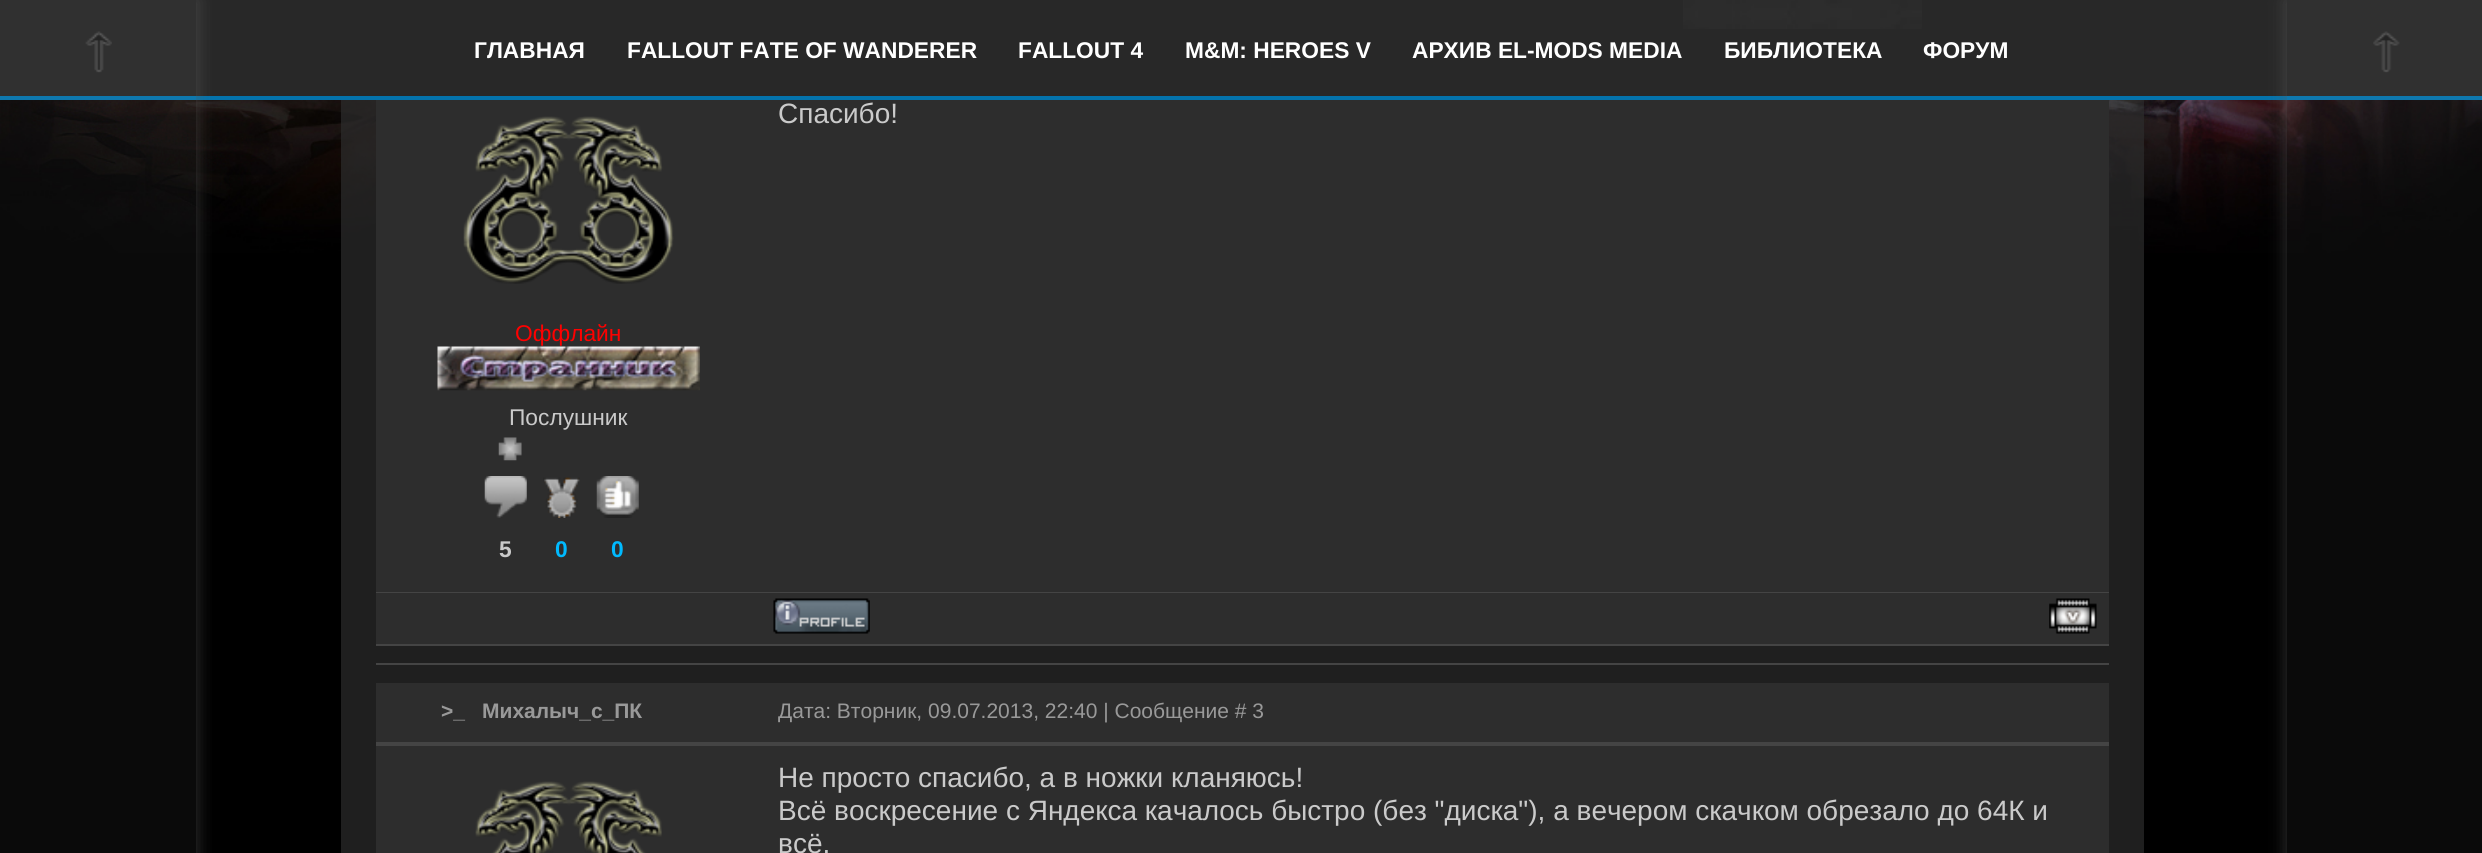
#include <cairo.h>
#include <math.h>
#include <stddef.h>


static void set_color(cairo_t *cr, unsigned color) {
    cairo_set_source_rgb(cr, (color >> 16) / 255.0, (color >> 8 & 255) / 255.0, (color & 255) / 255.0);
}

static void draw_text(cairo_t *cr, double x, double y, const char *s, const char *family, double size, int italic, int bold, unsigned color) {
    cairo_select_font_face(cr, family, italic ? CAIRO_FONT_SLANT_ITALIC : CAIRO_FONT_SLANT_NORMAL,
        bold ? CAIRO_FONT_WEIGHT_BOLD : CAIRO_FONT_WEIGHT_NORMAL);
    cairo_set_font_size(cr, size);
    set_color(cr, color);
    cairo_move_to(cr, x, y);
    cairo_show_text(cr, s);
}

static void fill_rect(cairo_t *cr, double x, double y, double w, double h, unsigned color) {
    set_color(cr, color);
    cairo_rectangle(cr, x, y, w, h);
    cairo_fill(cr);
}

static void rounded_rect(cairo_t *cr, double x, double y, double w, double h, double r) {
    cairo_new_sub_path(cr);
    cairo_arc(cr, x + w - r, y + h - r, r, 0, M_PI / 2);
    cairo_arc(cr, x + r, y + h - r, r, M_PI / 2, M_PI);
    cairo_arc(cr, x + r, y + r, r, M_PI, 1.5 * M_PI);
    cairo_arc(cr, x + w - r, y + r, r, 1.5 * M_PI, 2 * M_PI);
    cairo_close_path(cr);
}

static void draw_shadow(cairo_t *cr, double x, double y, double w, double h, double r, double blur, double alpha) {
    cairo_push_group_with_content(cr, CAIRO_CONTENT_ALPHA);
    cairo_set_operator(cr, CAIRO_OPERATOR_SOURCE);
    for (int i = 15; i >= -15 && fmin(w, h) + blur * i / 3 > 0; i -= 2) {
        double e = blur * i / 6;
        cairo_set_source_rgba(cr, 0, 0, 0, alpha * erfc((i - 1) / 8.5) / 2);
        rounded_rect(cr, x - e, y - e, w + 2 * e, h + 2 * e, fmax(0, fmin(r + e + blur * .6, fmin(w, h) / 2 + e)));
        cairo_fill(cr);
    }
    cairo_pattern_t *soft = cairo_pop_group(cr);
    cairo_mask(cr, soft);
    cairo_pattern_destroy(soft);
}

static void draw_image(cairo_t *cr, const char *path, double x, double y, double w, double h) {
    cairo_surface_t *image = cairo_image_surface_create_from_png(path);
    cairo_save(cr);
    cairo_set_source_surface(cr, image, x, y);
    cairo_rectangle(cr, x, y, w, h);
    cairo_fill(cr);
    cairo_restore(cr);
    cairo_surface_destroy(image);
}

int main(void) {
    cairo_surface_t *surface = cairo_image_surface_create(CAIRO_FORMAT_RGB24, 2482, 853);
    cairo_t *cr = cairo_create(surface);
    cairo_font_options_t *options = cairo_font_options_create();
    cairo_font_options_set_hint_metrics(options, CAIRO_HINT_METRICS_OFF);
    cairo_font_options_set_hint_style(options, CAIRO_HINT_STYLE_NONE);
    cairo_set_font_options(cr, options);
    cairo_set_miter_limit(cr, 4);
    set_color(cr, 0x000000);
    cairo_paint(cr);
    fill_rect(cr, 0, 0, 2482, 96, 0x282828);
    fill_rect(cr, 0, 96, 2482, 4, 0x0473AC);
    draw_image(cr, "assets/img4.png", 0, 100, 2482, 153);
    cairo_save(cr);
    cairo_rectangle(cr, 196, 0, 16, 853);
    cairo_clip(cr);
    set_color(cr, 0x666666);
    draw_shadow(cr, 0, 0, 196, 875, 0, 9, 0.5);
    cairo_restore(cr);
    cairo_set_source_rgba(cr, 0.784, 0.784, 0.784, 0.05);
    cairo_rectangle(cr, 0, 0, 196, 853);
    cairo_fill(cr);
    draw_image(cr, "assets/img1.png", 85, 31, 27, 42);
    draw_image(cr, "assets/img2.png", 1683, 0, 239, 29);
    draw_text(cr, 474, 58, "ГЛАВНАЯ", "Liberation Sans", 22.75, 0, 1, 0xFFFFFF);
    draw_text(cr, 627, 58, "FALLOUT FATE OF WANDERER", "Liberation Sans", 22.75, 0, 1, 0xFFFFFF);
    draw_text(cr, 1018, 58, "FALLOUT 4", "Liberation Sans", 22.75, 0, 1, 0xFFFFFF);
    draw_text(cr, 1185, 58, "M&M: HEROES V", "Liberation Sans", 22.75, 0, 1, 0xFFFFFF);
    draw_text(cr, 1412, 58, "АРХИВ EL-MODS MEDIA", "Liberation Sans", 22.75, 0, 1, 0xFFFFFF);
    draw_text(cr, 1724, 58, "БИБЛИОТЕКА", "Liberation Sans", 22.75, 0, 1, 0xFFFFFF);
    draw_text(cr, 1923, 58, "ФОРУМ", "Liberation Sans", 22.75, 0, 1, 0xFFFFFF);
    cairo_save(cr);
    cairo_set_fill_rule(cr, CAIRO_FILL_RULE_EVEN_ODD);
    cairo_new_path(cr);
    cairo_move_to(cr, 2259, 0);
    cairo_line_to(cr, 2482, 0);
    cairo_line_to(cr, 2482, 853);
    cairo_line_to(cr, 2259, 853);
    cairo_close_path(cr);
    cairo_move_to(cr, 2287, 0);
    cairo_line_to(cr, 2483, 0);
    cairo_line_to(cr, 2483, 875);
    cairo_line_to(cr, 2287, 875);
    cairo_close_path(cr);
    cairo_clip(cr);
    set_color(cr, 0x666666);
    draw_shadow(cr, 2287, 0, 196, 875, 0, 9, 0.5);
    cairo_restore(cr);
    cairo_set_source_rgba(cr, 0.784, 0.784, 0.784, 0.05);
    cairo_rectangle(cr, 2287, 0, 195, 853);
    cairo_fill(cr);
    draw_image(cr, "assets/img3.png", 2373, 31, 27, 42);
    cairo_set_source_rgba(cr, 0.173, 0.173, 0.173, 0.7);
    cairo_rectangle(cr, 341, 100, 1803, 753);
    cairo_fill(cr);
    fill_rect(cr, 376, 100, 1733, 492, 0x2D2D2D);
    draw_text(cr, 778, 123, "Спасибо!", "Liberation Sans", 28, 0, 0, 0xCACACA);
    fill_rect(cr, 376, 592, 1733, 1, 0x444444);
    draw_image(cr, "assets/img5.png", 463, 116, 211, 168);
    draw_text(cr, 515, 341, "Оффлайн", "Liberation Sans", 22.75, 0, 0, 0xFF0000);
    draw_image(cr, "assets/img6.png", 437, 346, 263, 45);
    draw_text(cr, 509, 425, "Послушник", "Liberation Sans", 22.75, 0, 0, 0xCACACA);
    draw_image(cr, "assets/img7.png", 498, 437, 24, 24);
    draw_image(cr, "assets/img8.png", 484, 476, 43, 42);
    draw_image(cr, "assets/img9.png", 543, 477, 37, 41);
    draw_image(cr, "assets/img10.png", 596, 476, 43, 42);
    draw_text(cr, 499, 557, "5", "Liberation Sans", 22.75, 0, 1, 0xCACACA);
    draw_text(cr, 555, 557, "0", "Liberation Sans", 22.75, 0, 1, 0x00BAFF);
    draw_text(cr, 611, 557, "0", "Liberation Sans", 22.75, 0, 1, 0x00BAFF);
    fill_rect(cr, 376, 593, 1733, 51, 0x2D2D2D);
    fill_rect(cr, 376, 644, 1733, 2, 0x444444);
    draw_image(cr, "assets/img11.png", 773, 598, 97, 36);
    draw_image(cr, "assets/img12.png", 2049, 598, 48, 36);
    fill_rect(cr, 376, 663, 1733, 2, 0x444444);
    fill_rect(cr, 376, 683, 1733, 59, 0x2D2D2D);
    fill_rect(cr, 376, 742, 1733, 4, 0x444444);
    draw_text(cr, 441, 718, ">_", "Liberation Sans", 21, 0, 1, 0x999999);
    draw_text(cr, 482, 718, "Михалыч_с_ПК", "Liberation Sans", 21, 0, 1, 0x999999);
    draw_text(cr, 778, 718, "Дата: Вторник, 09.07.2013, 22:40 | Сообщение # 3", "Liberation Sans", 21, 0, 0, 0x999999);
    fill_rect(cr, 376, 746, 1733, 107, 0x2D2D2D);
    draw_image(cr, "assets/img13.png", 475, 781, 187, 72);
    draw_text(cr, 778, 787, "Не просто спасибо, а в ножки кланяюсь!", "Liberation Sans", 28, 0, 0, 0xCACACA);
    draw_text(cr, 778, 820, "Всё воскресение с Яндекса качалось быстро (без \"диска\"), а вечером скачком обрезало до 64К и", "Liberation Sans", 28, 0, 0, 0xCACACA);
    draw_text(cr, 778, 853, "всё.", "Liberation Sans", 28, 0, 0, 0xCACACA);
    cairo_surface_write_to_png(surface, "output.png");
    cairo_font_options_destroy(options);
    cairo_destroy(cr);
    cairo_surface_destroy(surface);
    return 0;
}
